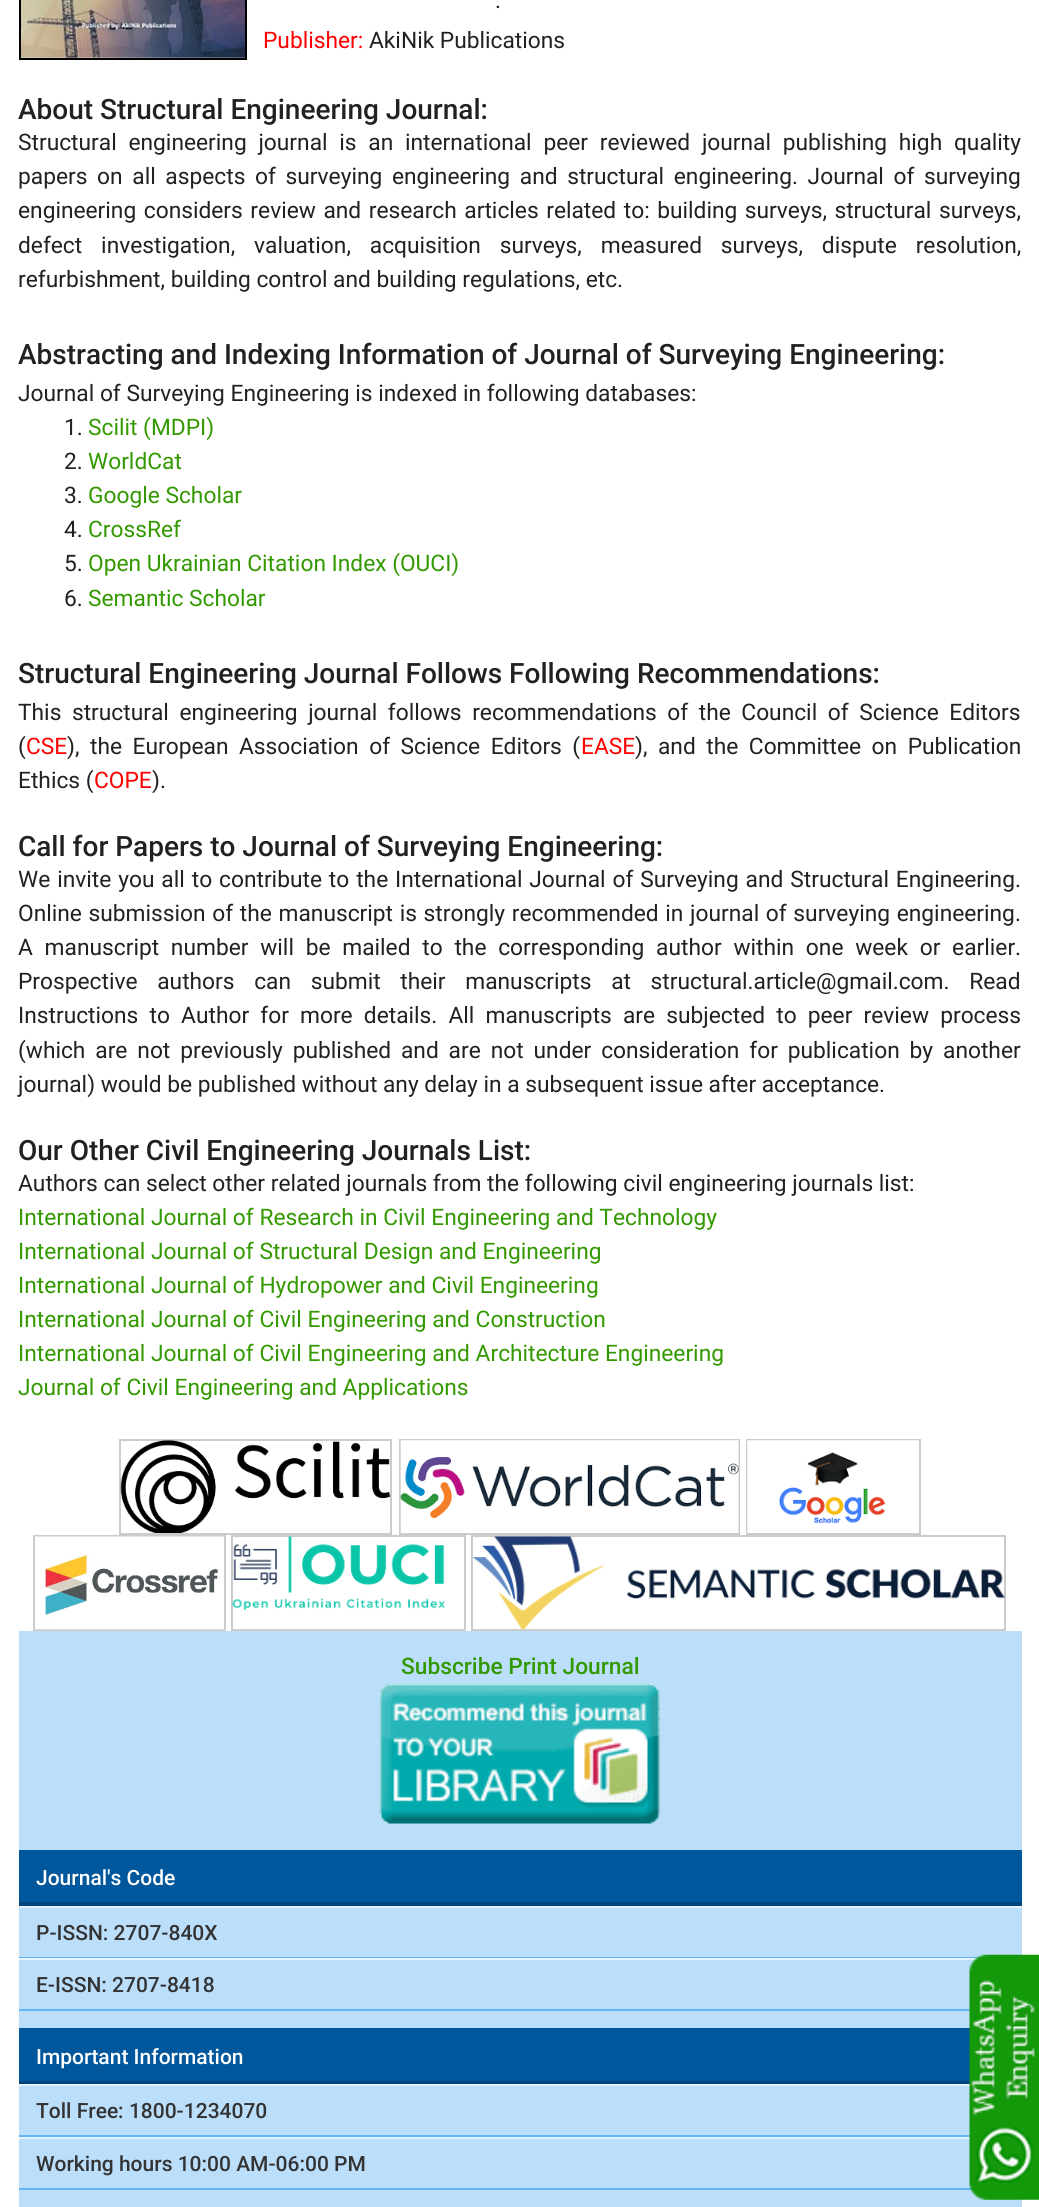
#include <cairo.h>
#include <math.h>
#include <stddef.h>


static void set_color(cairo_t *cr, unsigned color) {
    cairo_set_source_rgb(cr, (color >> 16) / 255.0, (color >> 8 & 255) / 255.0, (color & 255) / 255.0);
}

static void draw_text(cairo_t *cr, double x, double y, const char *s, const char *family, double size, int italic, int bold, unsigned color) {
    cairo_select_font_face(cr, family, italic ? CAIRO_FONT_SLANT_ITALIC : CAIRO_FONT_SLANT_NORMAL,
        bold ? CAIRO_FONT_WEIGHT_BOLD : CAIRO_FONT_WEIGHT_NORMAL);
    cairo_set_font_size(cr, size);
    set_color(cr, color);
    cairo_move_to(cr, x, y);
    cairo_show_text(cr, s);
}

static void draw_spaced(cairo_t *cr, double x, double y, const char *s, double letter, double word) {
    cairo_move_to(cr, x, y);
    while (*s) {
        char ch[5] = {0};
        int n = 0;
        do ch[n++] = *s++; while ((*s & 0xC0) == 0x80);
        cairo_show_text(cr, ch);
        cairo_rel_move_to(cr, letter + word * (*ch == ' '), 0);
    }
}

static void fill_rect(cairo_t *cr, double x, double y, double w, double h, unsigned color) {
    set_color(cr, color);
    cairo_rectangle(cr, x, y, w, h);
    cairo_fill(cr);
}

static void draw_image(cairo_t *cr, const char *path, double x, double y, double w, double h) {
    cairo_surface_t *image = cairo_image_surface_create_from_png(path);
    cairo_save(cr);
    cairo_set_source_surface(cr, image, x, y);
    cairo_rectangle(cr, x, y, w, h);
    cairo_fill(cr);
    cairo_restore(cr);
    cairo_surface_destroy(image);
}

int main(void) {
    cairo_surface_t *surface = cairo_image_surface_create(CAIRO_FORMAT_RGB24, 1039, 2207);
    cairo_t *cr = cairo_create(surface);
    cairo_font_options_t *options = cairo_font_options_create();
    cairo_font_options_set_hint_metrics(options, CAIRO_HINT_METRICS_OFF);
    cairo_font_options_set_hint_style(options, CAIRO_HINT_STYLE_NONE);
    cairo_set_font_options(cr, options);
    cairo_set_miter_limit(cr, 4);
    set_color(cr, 0xFFFFFF);
    cairo_paint(cr);
    cairo_rectangle(cr, 20, -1, 226, 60);
    set_color(cr, 0x000000);
    cairo_stroke(cr);
    draw_image(cr, "assets/img1.png", 21, 0, 224, 58);
    draw_text(cr, 495, 8, ".", "Roboto", 22.75, 0, 0, 0x212121);
    draw_text(cr, 263, 48, "Publisher:", "Roboto", 22.75, 0, 0, 0xFF0000);
    draw_text(cr, 369, 48, "AkiNik Publications", "Roboto", 22.75, 0, 0, 0x212121);
    draw_text(cr, 18, 119, "About Structural Engineering Journal:", "Roboto Medium", 28, 0, 0, 0x212121);
    cairo_select_font_face(cr, "Roboto", CAIRO_FONT_SLANT_NORMAL, CAIRO_FONT_WEIGHT_NORMAL);
    cairo_set_font_size(cr, 22.75);
    draw_spaced(cr, 18, 150, "Structural engineering journal is an international peer reviewed journal publishing high quality", 0, 6.1);
    draw_spaced(cr, 18, 184, "papers on all aspects of surveying engineering and structural engineering. Journal of surveying", 0, 4);
    draw_spaced(cr, 18, 218, "engineering considers review and research articles related to: building surveys, structural surveys,", 0, 1.9);
    draw_spaced(cr, 18, 253, "defect investigation, valuation, acquisition surveys, measured surveys, dispute resolution,", 0, 13.25);
    draw_text(cr, 18, 287, "refurbishment, building control and building regulations, etc.", "Roboto", 22.75, 0, 0, 0x212121);
    draw_text(cr, 18, 364, "Abstracting and Indexing Information of Journal of Surveying Engineering:", "Roboto Medium", 28, 0, 0, 0x212121);
    draw_text(cr, 18, 401, "Journal of Surveying Engineering is indexed in following databases:", "Roboto", 22.75, 0, 0, 0x212121);
    draw_text(cr, 64, 435, "1.", "Roboto", 22.75, 0, 0, 0x212121);
    draw_text(cr, 88, 435, "Scilit (MDPI)", "Roboto", 22.75, 0, 0, 0x339900);
    draw_text(cr, 64, 469, "2.", "Roboto", 22.75, 0, 0, 0x212121);
    draw_text(cr, 88, 469, "WorldCat", "Roboto", 22.75, 0, 0, 0x339900);
    draw_text(cr, 64, 503, "3.", "Roboto", 22.75, 0, 0, 0x212121);
    draw_text(cr, 88, 503, "Google Scholar", "Roboto", 22.75, 0, 0, 0x339900);
    draw_text(cr, 64, 537, "4.", "Roboto", 22.75, 0, 0, 0x212121);
    draw_text(cr, 88, 537, "CrossRef", "Roboto", 22.75, 0, 0, 0x339900);
    draw_text(cr, 64, 571, "5.", "Roboto", 22.75, 0, 0, 0x212121);
    draw_text(cr, 88, 571, "Open Ukrainian Citation Index (OUCI)", "Roboto", 22.75, 0, 0, 0x339900);
    draw_text(cr, 64, 606, "6.", "Roboto", 22.75, 0, 0, 0x212121);
    draw_text(cr, 88, 606, "Semantic Scholar", "Roboto", 22.75, 0, 0, 0x339900);
    draw_text(cr, 18, 683, "Structural Engineering Journal Follows Following Recommendations:", "Roboto Medium", 28, 0, 0, 0x212121);
    cairo_select_font_face(cr, "Roboto", CAIRO_FONT_SLANT_NORMAL, CAIRO_FONT_WEIGHT_NORMAL);
    cairo_set_font_size(cr, 22.75);
    draw_spaced(cr, 18, 720, "This structural engineering journal follows recommendations of the Council of Science Editors", 0, 4.9);
    draw_text(cr, 18, 754, "(", "Roboto", 22.75, 0, 0, 0x212121);
    draw_text(cr, 26, 754, "CSE", "Roboto", 22.75, 0, 0, 0xFF0000);
    set_color(cr, 0x212121);
    draw_spaced(cr, 67, 754, "), the European Association of Science Editors (", 0, 4.9);
    draw_text(cr, 581, 754, "EASE", "Roboto", 22.75, 0, 0, 0xFF0000);
    set_color(cr, 0x212121);
    draw_spaced(cr, 635, 754, "), and the Committee on Publication", 0, 4.9);
    draw_text(cr, 18, 788, "Ethics (", "Roboto", 22.75, 0, 0, 0x212121);
    draw_text(cr, 94, 788, "COPE", "Roboto", 22.75, 0, 0, 0xFF0000);
    draw_text(cr, 152, 788, ").", "Roboto", 22.75, 0, 0, 0x212121);
    draw_text(cr, 18, 856, "Call for Papers to Journal of Surveying Engineering:", "Roboto Medium", 28, 0, 0, 0x212121);
    cairo_select_font_face(cr, "Roboto", CAIRO_FONT_SLANT_NORMAL, CAIRO_FONT_WEIGHT_NORMAL);
    cairo_set_font_size(cr, 22.75);
    draw_spaced(cr, 18, 887, "We invite you all to contribute to the International Journal of Surveying and Structural Engineering.", 0, 1.25);
    draw_spaced(cr, 18, 921, "Online submission of the manuscript is strongly recommended in journal of surveying engineering.", 0, 1);
    draw_spaced(cr, 18, 955, "A manuscript number will be mailed to the corresponding author within one week or earlier.", 0, 6.1);
    draw_spaced(cr, 18, 989, "Prospective authors can submit their manuscripts at structural.article@gmail.com. Read", 0, 14);
    draw_spaced(cr, 18, 1023, "Instructions to Author for more details. All manuscripts are subjected to peer review process", 0, 5.5);
    draw_spaced(cr, 18, 1058, "(which are not previously published and are not under consideration for publication by another", 0, 4.25);
    draw_text(cr, 18, 1092, "journal) would be published without any delay in a subsequent issue after acceptance.", "Roboto", 22.75, 0, 0, 0x212121);
    draw_text(cr, 18, 1160, "Our Other Civil Engineering Journals List:", "Roboto Medium", 28, 0, 0, 0x212121);
    draw_text(cr, 18, 1191, "Authors can select other related journals from the following civil engineering journals list:", "Roboto", 22.75, 0, 0, 0x212121);
    draw_text(cr, 18, 1225, "International Journal of Research in Civil Engineering and Technology", "Roboto", 22.75, 0, 0, 0x339900);
    draw_text(cr, 18, 1259, "International Journal of Structural Design and Engineering", "Roboto", 22.75, 0, 0, 0x339900);
    draw_text(cr, 18, 1293, "International Journal of Hydropower and Civil Engineering", "Roboto", 22.75, 0, 0, 0x339900);
    draw_text(cr, 18, 1327, "International Journal of Civil Engineering and Construction", "Roboto", 22.75, 0, 0, 0x339900);
    draw_text(cr, 18, 1361, "International Journal of Civil Engineering and Architecture Engineering", "Roboto", 22.75, 0, 0, 0x339900);
    draw_text(cr, 18, 1395, "Journal of Civil Engineering and Applications", "Roboto", 22.75, 0, 0, 0x339900);
    cairo_rectangle(cr, 120, 1440, 271, 94);
    set_color(cr, 0xCCCCCC);
    cairo_stroke(cr);
    cairo_rectangle(cr, 400, 1440, 339, 94);
    cairo_stroke(cr);
    cairo_rectangle(cr, 747, 1440, 173, 94);
    cairo_stroke(cr);
    draw_image(cr, "assets/img2.png", 120, 1440, 271, 93);
    draw_image(cr, "assets/img3.png", 400, 1440, 339, 93);
    draw_image(cr, "assets/img4.png", 747, 1440, 172, 93);
    cairo_rectangle(cr, 34, 1536, 191, 94);
    cairo_stroke(cr);
    cairo_rectangle(cr, 232, 1536, 233, 94);
    cairo_stroke(cr);
    cairo_rectangle(cr, 472, 1536, 533, 94);
    cairo_stroke(cr);
    draw_image(cr, "assets/img5.png", 35, 1536, 189, 94);
    draw_image(cr, "assets/img6.png", 232, 1536, 214, 74);
    draw_image(cr, "assets/img7.png", 472, 1536, 533, 94);
    fill_rect(cr, 19, 1631, 1003, 219, 0xBBDEFB);
    draw_text(cr, 401, 1674, "Subscribe Print Journal", "Roboto Medium", 22.75, 0, 0, 0x339900);
    draw_image(cr, "assets/img8.png", 379, 1683, 281, 141);
    fill_rect(cr, 19, 1850, 1003, 52, 0x01579B);
    fill_rect(cr, 19, 1902, 1003, 4, 0x004479);
    draw_text(cr, 36, 1885, "Journal's Code", "Roboto Medium", 21, 0, 0, 0xFFFFFF);
    fill_rect(cr, 19, 1908, 1003, 120, 0xBBDEFB);
    fill_rect(cr, 19, 1906, 1003, 2, 0xE3F2FD);
    fill_rect(cr, 19, 1957, 962, 1, 0x64B5F6);
    draw_text(cr, 36, 1940, "P-ISSN: 2707-840X", "Roboto Medium", 21, 0, 0, 0x333333);
    fill_rect(cr, 19, 1958, 962, 2, 0xE3F2FD);
    fill_rect(cr, 19, 2009, 951, 2, 0x64B5F6);
    draw_text(cr, 36, 1992, "E-ISSN: 2707-8418", "Roboto Medium", 21, 0, 0, 0x333333);
    fill_rect(cr, 19, 2028, 951, 53, 0x01579B);
    fill_rect(cr, 19, 2081, 951, 3, 0x004479);
    draw_text(cr, 36, 2064, "Important Information", "Roboto Medium", 21, 0, 0, 0xFFFFFF);
    fill_rect(cr, 19, 2086, 1003, 121, 0xBBDEFB);
    fill_rect(cr, 19, 2084, 951, 2, 0xE3F2FD);
    fill_rect(cr, 19, 2135, 951, 2, 0x64B5F6);
    draw_text(cr, 36, 2118, "Toll Free: 1800-1234070", "Roboto Medium", 21, 0, 0, 0x333333);
    fill_rect(cr, 19, 2137, 951, 2, 0xE3F2FD);
    fill_rect(cr, 19, 2188, 955, 2, 0x64B5F6);
    draw_text(cr, 36, 2171, "Working hours 10:00 AM-06:00 PM", "Roboto Medium", 21, 0, 0, 0x333333);
    draw_image(cr, "assets/img9.png", 969, 1954, 70, 246);
    cairo_surface_write_to_png(surface, "output.png");
    cairo_font_options_destroy(options);
    cairo_destroy(cr);
    cairo_surface_destroy(surface);
    return 0;
}
